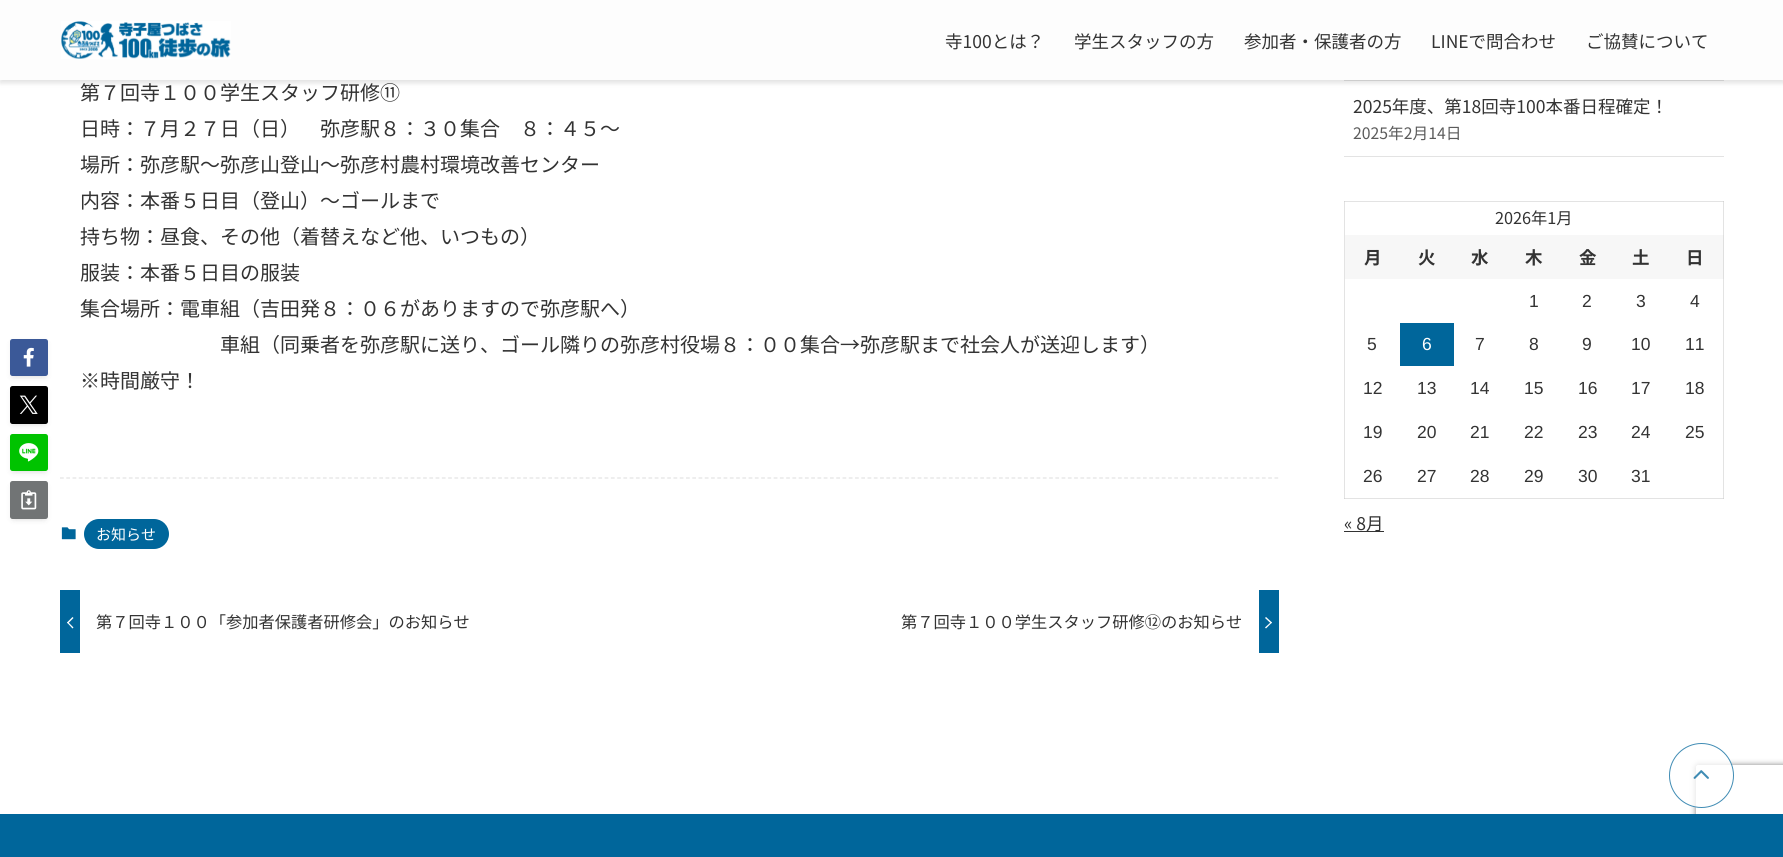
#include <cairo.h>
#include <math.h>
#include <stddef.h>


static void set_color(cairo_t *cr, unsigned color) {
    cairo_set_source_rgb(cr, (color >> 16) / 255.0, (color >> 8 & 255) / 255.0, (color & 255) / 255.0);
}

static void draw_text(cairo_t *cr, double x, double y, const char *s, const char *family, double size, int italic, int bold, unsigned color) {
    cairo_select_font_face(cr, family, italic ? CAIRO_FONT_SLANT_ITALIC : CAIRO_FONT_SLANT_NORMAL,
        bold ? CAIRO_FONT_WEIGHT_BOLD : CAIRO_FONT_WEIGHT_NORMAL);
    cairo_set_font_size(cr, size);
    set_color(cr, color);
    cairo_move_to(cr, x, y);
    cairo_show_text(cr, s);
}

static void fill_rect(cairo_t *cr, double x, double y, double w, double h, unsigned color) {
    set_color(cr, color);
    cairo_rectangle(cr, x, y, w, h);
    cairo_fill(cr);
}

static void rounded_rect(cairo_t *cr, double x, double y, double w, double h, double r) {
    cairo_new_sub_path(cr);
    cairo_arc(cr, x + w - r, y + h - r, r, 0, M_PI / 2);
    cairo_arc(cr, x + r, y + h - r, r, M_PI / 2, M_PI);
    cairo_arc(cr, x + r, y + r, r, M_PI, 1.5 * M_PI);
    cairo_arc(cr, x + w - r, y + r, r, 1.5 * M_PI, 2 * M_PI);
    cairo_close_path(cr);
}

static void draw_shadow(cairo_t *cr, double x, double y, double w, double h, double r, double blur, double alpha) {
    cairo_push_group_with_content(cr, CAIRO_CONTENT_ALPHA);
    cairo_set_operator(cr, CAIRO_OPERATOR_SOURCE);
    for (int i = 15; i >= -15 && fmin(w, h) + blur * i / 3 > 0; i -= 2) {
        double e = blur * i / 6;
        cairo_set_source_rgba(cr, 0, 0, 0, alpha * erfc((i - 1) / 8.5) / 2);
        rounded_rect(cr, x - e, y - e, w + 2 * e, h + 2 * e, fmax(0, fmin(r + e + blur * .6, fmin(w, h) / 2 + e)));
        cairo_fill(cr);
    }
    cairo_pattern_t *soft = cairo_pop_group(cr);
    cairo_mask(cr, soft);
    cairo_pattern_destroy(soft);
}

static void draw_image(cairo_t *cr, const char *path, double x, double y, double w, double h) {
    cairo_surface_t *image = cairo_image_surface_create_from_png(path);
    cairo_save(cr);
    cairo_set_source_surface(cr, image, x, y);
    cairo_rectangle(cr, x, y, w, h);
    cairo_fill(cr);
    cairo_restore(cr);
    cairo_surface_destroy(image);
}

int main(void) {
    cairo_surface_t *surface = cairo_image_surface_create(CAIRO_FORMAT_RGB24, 1783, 857);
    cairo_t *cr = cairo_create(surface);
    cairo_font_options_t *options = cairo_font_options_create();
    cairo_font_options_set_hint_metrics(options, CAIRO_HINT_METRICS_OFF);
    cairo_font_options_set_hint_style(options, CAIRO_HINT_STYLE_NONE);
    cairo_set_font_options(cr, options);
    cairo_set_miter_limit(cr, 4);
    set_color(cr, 0xFFFFFF);
    cairo_paint(cr);
    fill_rect(cr, 1344, 201, 1, 298, 0xE3E3E3);
    fill_rect(cr, 1344, 498, 380, 1, 0xE3E3E3);
    fill_rect(cr, 1344, 498, 1, 1, 0xD5D5D5);
    fill_rect(cr, 1723, 201, 1, 298, 0xE3E3E3);
    fill_rect(cr, 1723, 498, 1, 1, 0xD5D5D5);
    fill_rect(cr, 1344, 80, 380, 1, 0xE3E3E3);
    set_color(cr, 0x000000);
    draw_shadow(cr, 0, 3, 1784, 80, 0, 2.5, 0.12);
    fill_rect(cr, 0, 0, 1783, 80, 0xFDFDFD);
    draw_image(cr, "assets/img1.png", 61, 21, 170, 38);
    draw_text(cr, 945, 48, "寺100とは？", "Noto Sans JP", 17.5, 0, 0, 0x333333);
    draw_text(cr, 1074, 48, "学生スタッフの方", "Noto Sans JP", 17.5, 0, 0, 0x333333);
    draw_text(cr, 1244, 48, "参加者・保護者の方", "Noto Sans JP", 17.5, 0, 0, 0x333333);
    draw_text(cr, 1431, 48, "LINEで問合わせ", "Noto Sans JP", 17.5, 0, 0, 0x333333);
    draw_text(cr, 1586, 48, "ご協賛について", "Noto Sans JP", 17.5, 0, 0, 0x333333);
    draw_text(cr, 80, 100, "第７回寺１００学生スタッフ研修⑪", "Noto Sans JP", 20, 0, 0, 0x333333);
    draw_text(cr, 80, 136, "日時：７月２７日（日）　弥彦駅８：３０集合　８：４５～", "Noto Sans JP", 20, 0, 0, 0x333333);
    draw_text(cr, 80, 172, "場所：弥彦駅～弥彦山登山～弥彦村農村環境改善センター", "Noto Sans JP", 20, 0, 0, 0x333333);
    draw_text(cr, 80, 208, "内容：本番５日目（登山）～ゴールまで", "Noto Sans JP", 20, 0, 0, 0x333333);
    draw_text(cr, 80, 244, "持ち物：昼食、その他（着替えなど他、いつもの）", "Noto Sans JP", 20, 0, 0, 0x333333);
    draw_text(cr, 80, 280, "服装：本番５日目の服装", "Noto Sans JP", 20, 0, 0, 0x333333);
    draw_text(cr, 80, 316, "集合場所：電車組（吉田発８：０６がありますので弥彦駅へ）", "Noto Sans JP", 20, 0, 0, 0x333333);
    draw_text(cr, 220, 352, "車組（同乗者を弥彦駅に送り、ゴール隣りの弥彦村役場８：００集合→弥彦駅まで社会人が送迎します）", "Noto Sans JP", 20, 0, 0, 0x333333);
    draw_text(cr, 80, 388, "※時間厳守！", "Noto Sans JP", 20, 0, 0, 0x333333);
    set_color(cr, 0x000000);
    draw_shadow(cr, 15, 349, 28, 27, 0, 2.5, 0.1);
    draw_shadow(cr, 10, 341, 38, 38, 2.5, 2.5, 0.05);
    set_color(cr, 0x3B5998);
    rounded_rect(cr, 10, 339, 38, 37, 2.5);
    cairo_fill(cr);
    draw_image(cr, "assets/img2.png", 23, 347, 11, 20);
    set_color(cr, 0x000000);
    draw_shadow(cr, 15, 396, 28, 28, 0, 2.5, 0.1);
    draw_shadow(cr, 10, 389, 38, 37, 2.5, 2.5, 0.05);
    set_color(cr, 0x000000);
    rounded_rect(cr, 10, 386, 38, 38, 2.5);
    cairo_fill(cr);
    draw_image(cr, "assets/img3.png", 19, 395, 19, 19);
    set_color(cr, 0x000000);
    draw_shadow(cr, 15, 444, 28, 27, 0, 2.5, 0.1);
    draw_shadow(cr, 10, 436, 38, 38, 2.5, 2.5, 0.05);
    set_color(cr, 0x00C300);
    rounded_rect(cr, 10, 434, 38, 37, 2.5);
    cairo_fill(cr);
    draw_image(cr, "assets/img4.png", 19, 443, 20, 19);
    set_color(cr, 0x000000);
    draw_shadow(cr, 15, 491, 28, 28, 0, 2.5, 0.1);
    draw_shadow(cr, 10, 484, 38, 37, 2.5, 2.5, 0.05);
    set_color(cr, 0x717475);
    rounded_rect(cr, 10, 481, 38, 38, 2.5);
    cairo_fill(cr);
    draw_image(cr, "assets/img5.png", 21, 490, 16, 20);
    cairo_new_path(cr);
    cairo_move_to(cr, 60, 478);
    cairo_line_to(cr, 1279, 478);
    set_color(cr, 0xE3E3E3);
    cairo_set_line_width(cr, 1.2);
    cairo_set_dash(cr, (double[]){3.75, 2.51}, 2, 0);
    cairo_stroke(cr);
    draw_image(cr, "assets/img6.png", 61, 527, 15, 13);
    set_color(cr, 0x00669B);
    rounded_rect(cr, 84, 519, 85, 30, 15);
    cairo_fill(cr);
    draw_text(cr, 96, 540, "お知らせ", "Noto Sans JP", 15, 0, 0, 0xFFFFFF);
    fill_rect(cr, 60, 590, 20, 63, 0x00669B);
    set_color(cr, 0xFFFFFF);
    cairo_new_path(cr);
    cairo_move_to(cr, 68, 622);
    cairo_line_to(cr, 73.5, 627.5);
    cairo_line_to(cr, 72.5, 628.5);
    cairo_line_to(cr, 67, 622.5);
    cairo_close_path(cr);
    cairo_fill(cr);
    cairo_new_path(cr);
    cairo_move_to(cr, 72.5, 617);
    cairo_line_to(cr, 73.5, 618);
    cairo_line_to(cr, 68, 623.5);
    cairo_line_to(cr, 67, 622.5);
    cairo_close_path(cr);
    cairo_fill(cr);
    draw_text(cr, 96, 628, "第７回寺１００「参加者保護者研修会」のお知らせ", "Noto Sans JP", 16.25, 0, 0, 0x333333);
    fill_rect(cr, 1259, 590, 20, 63, 0x00669B);
    draw_text(cr, 901, 628, "第７回寺１００学生スタッフ研修⑫のお知らせ", "Noto Sans JP", 16.25, 0, 0, 0x333333);
    set_color(cr, 0xFFFFFF);
    cairo_new_path(cr);
    cairo_move_to(cr, 1265, 618);
    cairo_line_to(cr, 1266, 617);
    cairo_line_to(cr, 1272, 622.5);
    cairo_line_to(cr, 1271, 623.5);
    cairo_close_path(cr);
    cairo_fill(cr);
    cairo_new_path(cr);
    cairo_move_to(cr, 1265, 627.5);
    cairo_line_to(cr, 1271, 622);
    cairo_line_to(cr, 1272, 622.5);
    cairo_line_to(cr, 1266, 628.5);
    cairo_close_path(cr);
    cairo_fill(cr);
    fill_rect(cr, 1344, 156, 380, 1, 0xE3E3E3);
    draw_text(cr, 1353, 113, "2025年度、第18回寺100本番日程確定！", "Noto Sans JP", 17.5, 0, 0, 0x333333);
    draw_text(cr, 1353, 139, "2025年2月14日", "Noto Sans JP", 15.75, 0, 0, 0x5C5C5C);
    fill_rect(cr, 1344, 201, 380, 1, 0xE3E3E3);
    fill_rect(cr, 1344, 201, 1, 1, 0xD5D5D5);
    fill_rect(cr, 1723, 201, 1, 1, 0xD5D5D5);
    draw_text(cr, 1495, 224, "2026年1月", "Noto Sans JP", 16.25, 0, 0, 0x333333);
    fill_rect(cr, 1345, 235, 378, 44, 0xF7F7F7);
    draw_text(cr, 1364, 264, "月", "Noto Sans JP", 17.5, 0, 1, 0x333333);
    draw_text(cr, 1418, 264, "火", "Noto Sans JP", 17.5, 0, 1, 0x333333);
    draw_text(cr, 1471, 264, "水", "Noto Sans JP", 17.5, 0, 1, 0x333333);
    draw_text(cr, 1525, 264, "木", "Noto Sans JP", 17.5, 0, 1, 0x333333);
    draw_text(cr, 1579, 264, "金", "Noto Sans JP", 17.5, 0, 1, 0x333333);
    draw_text(cr, 1632, 264, "土", "Noto Sans JP", 17.5, 0, 1, 0x333333);
    fill_rect(cr, 1723, 235, 1, 44, 0xDFDFDF);
    draw_text(cr, 1686, 264, "日", "Noto Sans JP", 17.5, 0, 1, 0x333333);
    draw_text(cr, 1529, 307, "1", "Liberation Sans", 17.5, 0, 0, 0x333333);
    draw_text(cr, 1582, 307, "2", "Liberation Sans", 17.5, 0, 0, 0x333333);
    draw_text(cr, 1636, 307, "3", "Liberation Sans", 17.5, 0, 0, 0x333333);
    draw_text(cr, 1690, 307, "4", "Liberation Sans", 17.5, 0, 0, 0x333333);
    draw_text(cr, 1367, 350, "5", "Liberation Sans", 17.5, 0, 0, 0x333333);
    fill_rect(cr, 1400, 323, 54, 43, 0x00669B);
    draw_text(cr, 1422, 350, "6", "Liberation Sans", 17.5, 0, 0, 0xFFFFFF);
    draw_text(cr, 1475, 350, "7", "Liberation Sans", 17.5, 0, 0, 0x333333);
    draw_text(cr, 1529, 350, "8", "Liberation Sans", 17.5, 0, 0, 0x333333);
    draw_text(cr, 1582, 350, "9", "Liberation Sans", 17.5, 0, 0, 0x333333);
    draw_text(cr, 1631, 350, "10", "Liberation Sans", 17.5, 0, 0, 0x333333);
    draw_text(cr, 1685, 350, "11", "Liberation Sans", 17.5, 0, 0, 0x333333);
    draw_text(cr, 1363, 394, "12", "Liberation Sans", 17.5, 0, 0, 0x333333);
    draw_text(cr, 1417, 394, "13", "Liberation Sans", 17.5, 0, 0, 0x333333);
    draw_text(cr, 1470, 394, "14", "Liberation Sans", 17.5, 0, 0, 0x333333);
    draw_text(cr, 1524, 394, "15", "Liberation Sans", 17.5, 0, 0, 0x333333);
    draw_text(cr, 1578, 394, "16", "Liberation Sans", 17.5, 0, 0, 0x333333);
    draw_text(cr, 1631, 394, "17", "Liberation Sans", 17.5, 0, 0, 0x333333);
    draw_text(cr, 1685, 394, "18", "Liberation Sans", 17.5, 0, 0, 0x333333);
    draw_text(cr, 1363, 438, "19", "Liberation Sans", 17.5, 0, 0, 0x333333);
    draw_text(cr, 1417, 438, "20", "Liberation Sans", 17.5, 0, 0, 0x333333);
    draw_text(cr, 1470, 438, "21", "Liberation Sans", 17.5, 0, 0, 0x333333);
    draw_text(cr, 1524, 438, "22", "Liberation Sans", 17.5, 0, 0, 0x333333);
    draw_text(cr, 1578, 438, "23", "Liberation Sans", 17.5, 0, 0, 0x333333);
    draw_text(cr, 1631, 438, "24", "Liberation Sans", 17.5, 0, 0, 0x333333);
    draw_text(cr, 1685, 438, "25", "Liberation Sans", 17.5, 0, 0, 0x333333);
    draw_text(cr, 1363, 482, "26", "Liberation Sans", 17.5, 0, 0, 0x333333);
    draw_text(cr, 1417, 482, "27", "Liberation Sans", 17.5, 0, 0, 0x333333);
    draw_text(cr, 1470, 482, "28", "Liberation Sans", 17.5, 0, 0, 0x333333);
    draw_text(cr, 1524, 482, "29", "Liberation Sans", 17.5, 0, 0, 0x333333);
    draw_text(cr, 1578, 482, "30", "Liberation Sans", 17.5, 0, 0, 0x333333);
    draw_text(cr, 1631, 482, "31", "Liberation Sans", 17.5, 0, 0, 0x333333);
    fill_rect(cr, 1344, 531, 40, 1, 0x333333);
    draw_text(cr, 1344, 530, "« 8月", "Noto Sans JP", 17.5, 0, 0, 0x333333);
    cairo_save(cr);
    cairo_set_fill_rule(cr, CAIRO_FILL_RULE_EVEN_ODD);
    cairo_new_path(cr);
    cairo_move_to(cr, 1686, 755);
    cairo_line_to(cr, 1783, 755);
    cairo_line_to(cr, 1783, 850);
    cairo_line_to(cr, 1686, 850);
    cairo_close_path(cr);
    cairo_move_to(cr, 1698.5, 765);
    cairo_line_to(cr, 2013.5, 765);
    cairo_curve_to(cr, 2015, 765, 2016, 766, 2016, 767.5);
    cairo_line_to(cr, 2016, 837.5);
    cairo_curve_to(cr, 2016, 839, 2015, 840, 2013.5, 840);
    cairo_line_to(cr, 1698.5, 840);
    cairo_curve_to(cr, 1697, 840, 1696, 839, 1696, 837.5);
    cairo_line_to(cr, 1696, 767.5);
    cairo_curve_to(cr, 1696, 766, 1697, 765, 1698.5, 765);
    cairo_close_path(cr);
    cairo_clip(cr);
    set_color(cr, 0x808080);
    draw_shadow(cr, 1696, 765, 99, 75, 2.5, 3, 1);
    cairo_restore(cr);
    cairo_set_source_rgba(cr, 1, 1, 1, 0.75);
    cairo_arc(cr, 1701.5, 775.5, 32.5, 0, 2 * M_PI);
    cairo_fill(cr);
    cairo_arc(cr, 1701.5, 775.5, 32, 0, 2 * M_PI);
    cairo_set_source_rgba(cr, 0, 0.4, 0.608, 0.75);
    cairo_set_line_width(cr, 1);
    cairo_set_dash(cr, NULL, 0, 0);
    cairo_stroke(cr);
    draw_image(cr, "assets/img7.png", 1693, 770, 16, 9);
    fill_rect(cr, 0, 814, 1783, 43, 0x00669B);
    cairo_surface_write_to_png(surface, "output.png");
    cairo_font_options_destroy(options);
    cairo_destroy(cr);
    cairo_surface_destroy(surface);
    return 0;
}
